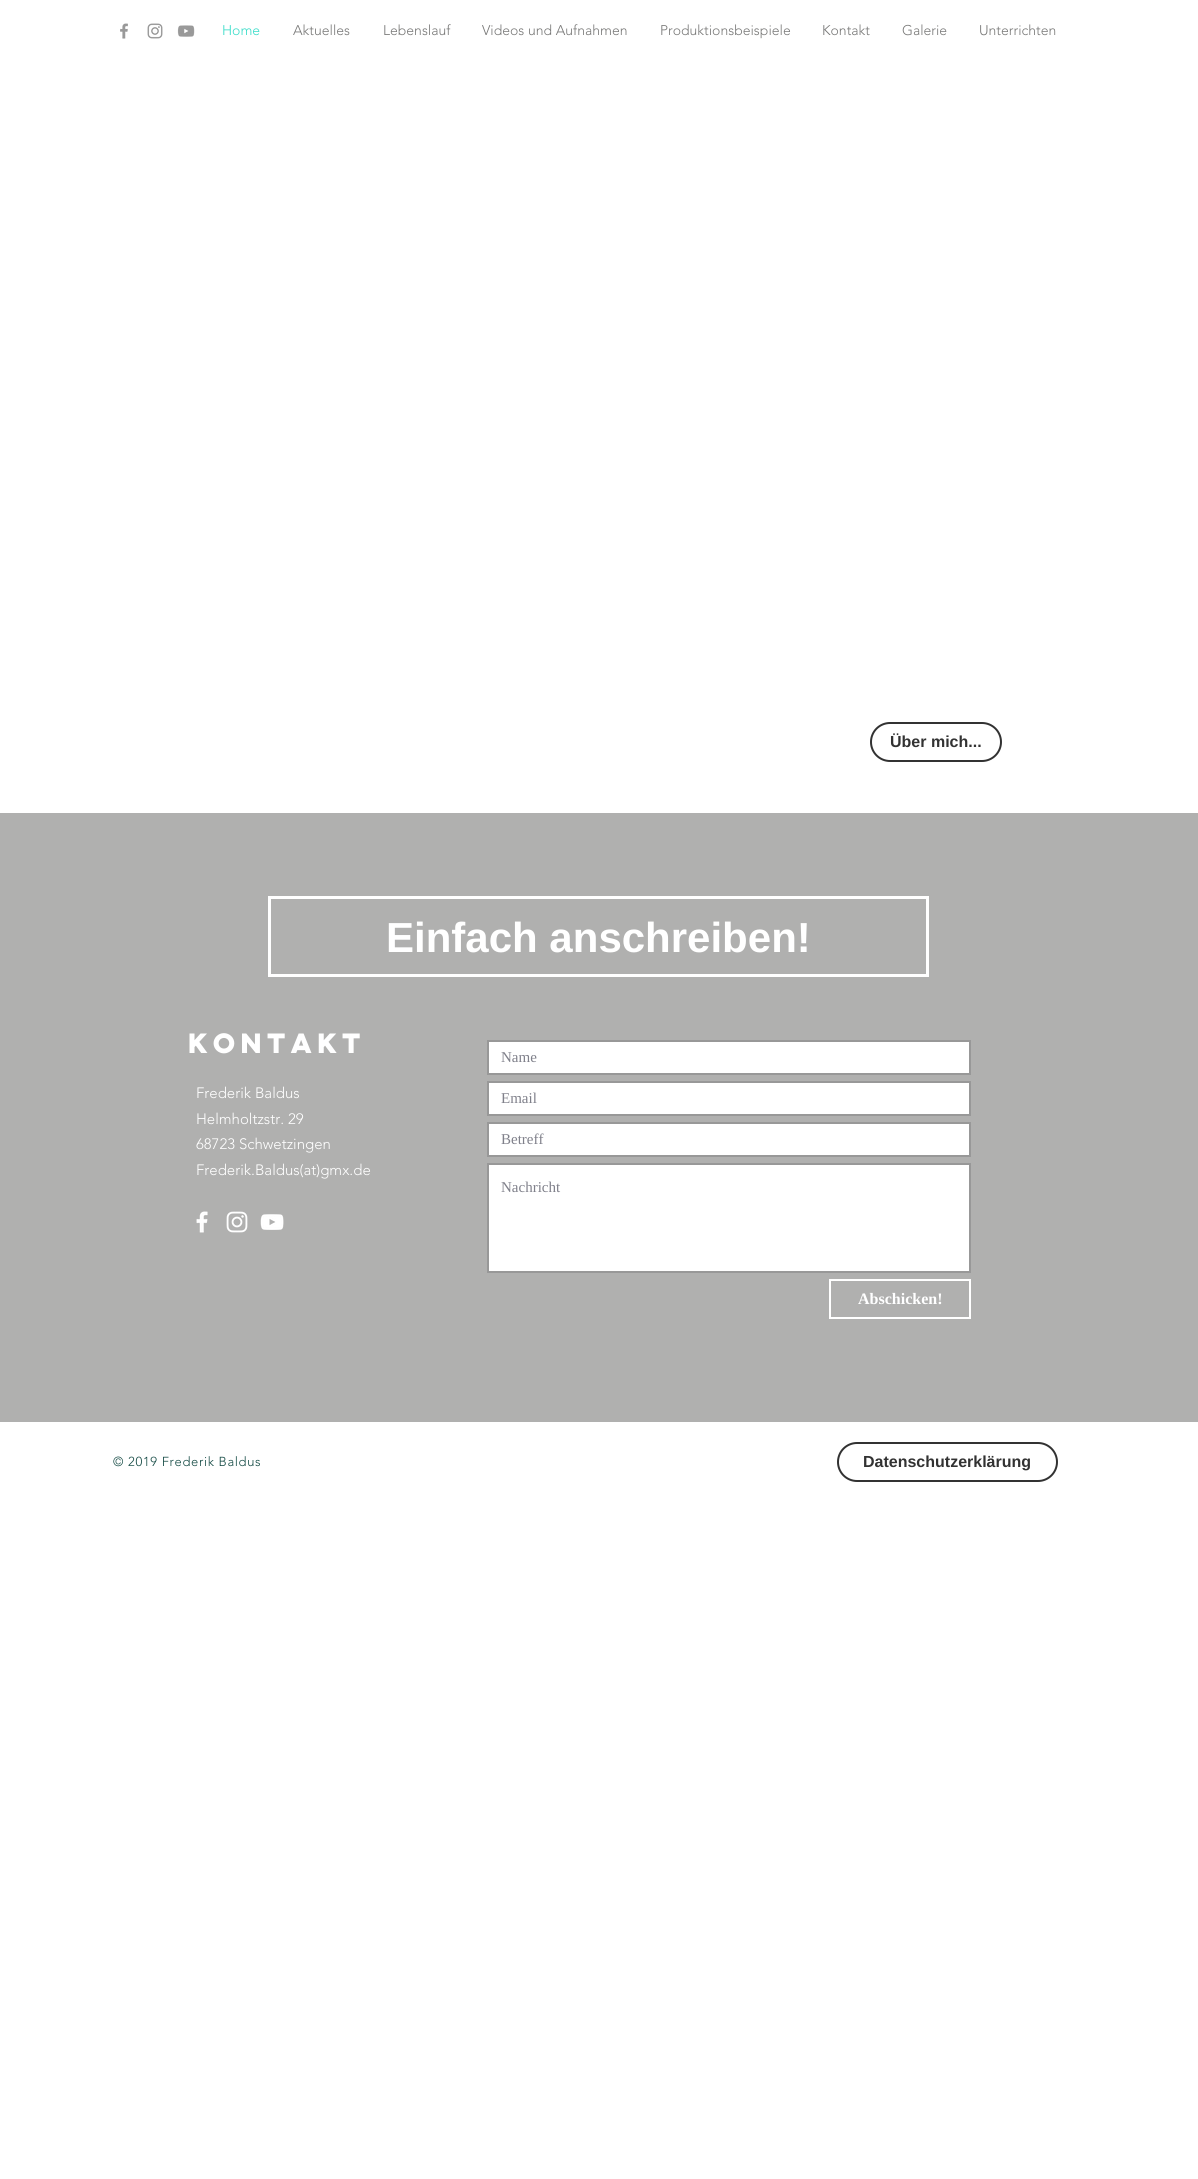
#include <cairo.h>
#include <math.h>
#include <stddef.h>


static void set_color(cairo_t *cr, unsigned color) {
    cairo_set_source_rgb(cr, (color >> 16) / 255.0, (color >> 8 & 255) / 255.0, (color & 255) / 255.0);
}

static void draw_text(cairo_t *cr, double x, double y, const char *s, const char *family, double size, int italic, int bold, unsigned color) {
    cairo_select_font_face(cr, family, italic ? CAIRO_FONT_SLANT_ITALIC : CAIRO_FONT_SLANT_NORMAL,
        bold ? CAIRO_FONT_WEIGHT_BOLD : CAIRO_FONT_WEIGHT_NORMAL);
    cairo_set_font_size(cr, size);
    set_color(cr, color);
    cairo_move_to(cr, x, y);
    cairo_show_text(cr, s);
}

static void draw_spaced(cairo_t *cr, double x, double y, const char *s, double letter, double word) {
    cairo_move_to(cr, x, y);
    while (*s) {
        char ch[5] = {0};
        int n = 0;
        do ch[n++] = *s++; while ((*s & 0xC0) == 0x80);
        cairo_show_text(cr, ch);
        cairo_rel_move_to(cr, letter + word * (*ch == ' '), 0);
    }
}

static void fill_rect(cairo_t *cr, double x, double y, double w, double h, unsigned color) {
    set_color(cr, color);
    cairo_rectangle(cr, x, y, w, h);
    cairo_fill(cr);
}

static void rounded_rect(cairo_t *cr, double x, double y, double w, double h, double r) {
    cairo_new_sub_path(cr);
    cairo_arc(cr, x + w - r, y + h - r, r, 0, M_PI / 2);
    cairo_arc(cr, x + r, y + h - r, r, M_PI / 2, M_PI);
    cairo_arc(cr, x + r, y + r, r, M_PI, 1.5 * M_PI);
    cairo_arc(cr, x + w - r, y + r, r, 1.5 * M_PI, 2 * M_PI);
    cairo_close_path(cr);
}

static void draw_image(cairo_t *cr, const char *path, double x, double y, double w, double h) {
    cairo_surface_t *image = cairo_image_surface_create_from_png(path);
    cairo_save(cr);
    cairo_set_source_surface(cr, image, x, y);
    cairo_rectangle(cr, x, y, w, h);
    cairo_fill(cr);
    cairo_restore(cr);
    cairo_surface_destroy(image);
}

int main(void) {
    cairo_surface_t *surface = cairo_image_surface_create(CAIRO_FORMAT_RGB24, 1198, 2179);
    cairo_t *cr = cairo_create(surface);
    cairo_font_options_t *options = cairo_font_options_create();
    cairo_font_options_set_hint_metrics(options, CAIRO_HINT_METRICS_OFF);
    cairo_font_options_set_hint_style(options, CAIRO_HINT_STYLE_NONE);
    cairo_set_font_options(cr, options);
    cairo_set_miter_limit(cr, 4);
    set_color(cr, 0xFFFFFF);
    cairo_paint(cr);
    draw_image(cr, "assets/img1.png", 120, 23, 8, 16);
    draw_image(cr, "assets/img2.png", 147, 23, 16, 16);
    draw_image(cr, "assets/img3.png", 177, 25, 18, 12);
    draw_text(cr, 222, 35, "Home", "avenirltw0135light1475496 Light", 14, 0, 0, 0x38DCC8);
    draw_text(cr, 293, 35, "Aktuelles", "avenirltw0135light1475496 Light", 14, 0, 0, 0x787877);
    draw_text(cr, 383, 35, "Lebenslauf", "avenirltw0135light1475496 Light", 14, 0, 0, 0x787877);
    draw_text(cr, 482, 35, "Videos und Aufnahmen", "avenirltw0135light1475496 Light", 14, 0, 0, 0x787877);
    draw_text(cr, 660, 35, "Produktionsbeispiele", "avenirltw0135light1475496 Light", 14, 0, 0, 0x787877);
    draw_text(cr, 822, 35, "Kontakt", "avenirltw0135light1475496 Light", 14, 0, 0, 0x787877);
    draw_text(cr, 902, 35, "Galerie", "avenirltw0135light1475496 Light", 14, 0, 0, 0x787877);
    draw_text(cr, 979, 35, "Unterrichten", "avenirltw0135light1475496 Light", 14, 0, 0, 0x787877);
    rounded_rect(cr, 871, 723, 130, 38, 19);
    set_color(cr, 0x323232);
    cairo_stroke(cr);
    draw_text(cr, 890, 747, "Über mich...", "Liberation Sans", 16, 0, 1, 0x323232);
    fill_rect(cr, 0, 813, 1198, 609, 0xB0B0AF);
    cairo_rectangle(cr, 269.5, 897.5, 658, 78);
    set_color(cr, 0xFFFFFF);
    cairo_set_line_width(cr, 3);
    cairo_stroke(cr);
    draw_text(cr, 386, 952, "Einfach anschreiben!", "Liberation Sans", 42, 0, 1, 0xFFFFFF);
    draw_text(cr, 188, 1053, "Kontakt", "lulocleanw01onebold", 25, 0, 1, 0xFFFFFF);
    draw_text(cr, 196, 1098, "Frederik Baldus", "avenirltw0135light1475496 Light", 15, 0, 0, 0xFFFFFF);
    draw_text(cr, 196, 1124, "Helmholtzstr. 29", "avenirltw0135light1475496 Light", 15, 0, 0, 0xFFFFFF);
    draw_text(cr, 196, 1149, "68723 Schwetzingen", "avenirltw0135light1475496 Light", 15, 0, 0, 0xFFFFFF);
    draw_text(cr, 196, 1175, "Frederik.Baldus(at)gmx.de", "avenirltw0135light1475496 Light", 15, 0, 0, 0xFFFFFF);
    cairo_rectangle(cr, 488, 1041, 482, 33);
    cairo_fill_preserve(cr);
    set_color(cr, 0x989898);
    cairo_set_line_width(cr, 2);
    cairo_stroke(cr);
    draw_text(cr, 501, 1062, "Name", "Liberation Serif", 15, 0, 0, 0x7F808A);
    set_color(cr, 0xFFFFFF);
    cairo_rectangle(cr, 488, 1082, 482, 33);
    cairo_fill_preserve(cr);
    set_color(cr, 0x989898);
    cairo_stroke(cr);
    draw_text(cr, 501, 1103, "Email", "Liberation Serif", 15, 0, 0, 0x7F808A);
    set_color(cr, 0xFFFFFF);
    cairo_rectangle(cr, 488, 1123, 482, 33);
    cairo_fill_preserve(cr);
    set_color(cr, 0x989898);
    cairo_stroke(cr);
    draw_text(cr, 501, 1144, "Betreff", "Liberation Serif", 15, 0, 0, 0x7F808A);
    set_color(cr, 0xFFFFFF);
    cairo_rectangle(cr, 488, 1164, 482, 108);
    cairo_fill_preserve(cr);
    set_color(cr, 0x989898);
    cairo_stroke(cr);
    draw_text(cr, 501, 1192, "Nachricht", "Liberation Serif", 15, 0, 0, 0x7F808A);
    cairo_rectangle(cr, 830, 1280, 140, 38);
    set_color(cr, 0xFFFFFF);
    cairo_stroke(cr);
    draw_text(cr, 858, 1304, "Abschicken!", "Liberation Serif", 16, 0, 1, 0xFFFFFF);
    draw_image(cr, "assets/img4.png", 196, 1211, 12, 22);
    draw_image(cr, "assets/img5.png", 226, 1211, 22, 22);
    draw_image(cr, "assets/img6.png", 260, 1214, 24, 16);
    cairo_select_font_face(cr, "avenirltw0135light1475496 Light", CAIRO_FONT_SLANT_NORMAL, CAIRO_FONT_WEIGHT_NORMAL);
    cairo_set_font_size(cr, 13);
    set_color(cr, 0x134943);
    draw_spaced(cr, 113, 1466, "© 2019 Frederik Baldus", 0.65, 0);
    rounded_rect(cr, 838, 1443, 219, 38, 19);
    set_color(cr, 0x323232);
    cairo_stroke(cr);
    draw_text(cr, 863, 1467, "Datenschutzerklärung", "Liberation Sans", 16, 0, 1, 0x323232);
    cairo_surface_write_to_png(surface, "output.png");
    cairo_font_options_destroy(options);
    cairo_destroy(cr);
    cairo_surface_destroy(surface);
    return 0;
}
